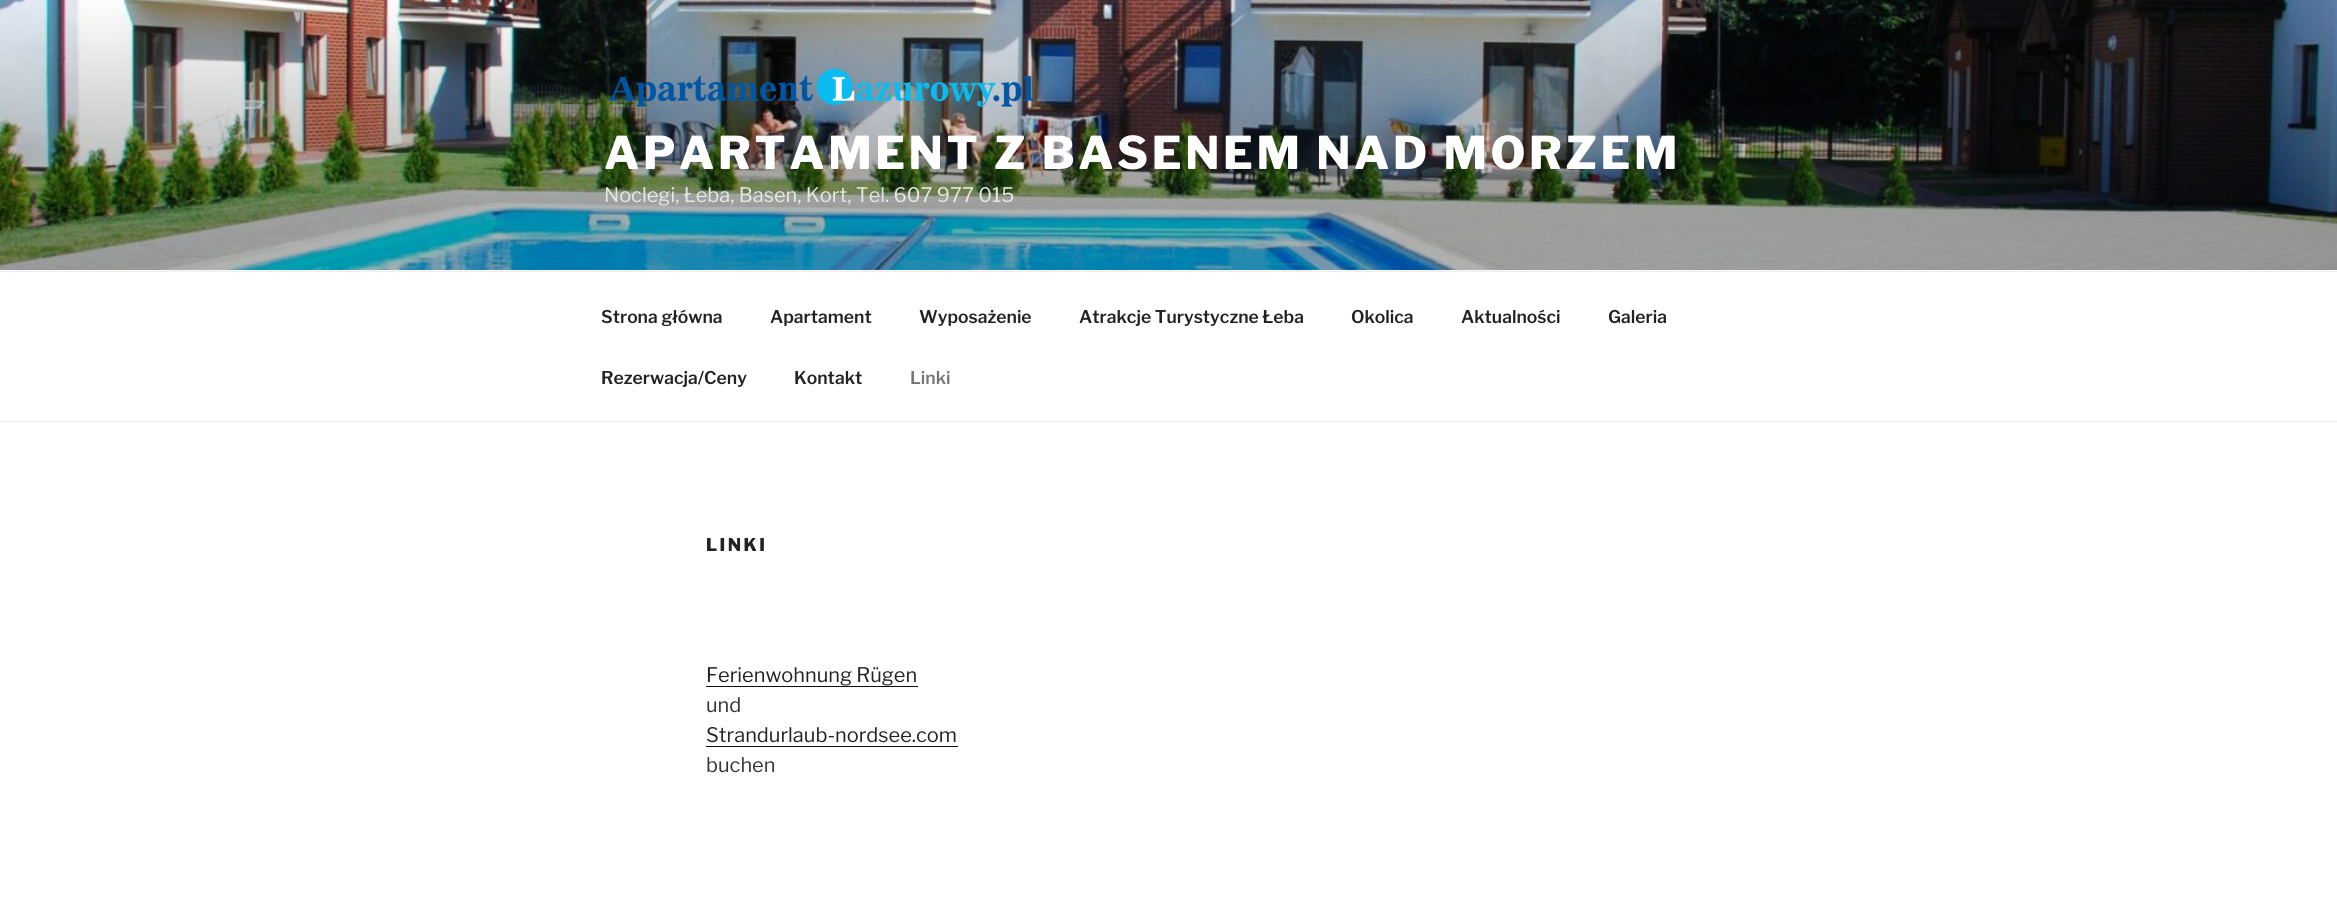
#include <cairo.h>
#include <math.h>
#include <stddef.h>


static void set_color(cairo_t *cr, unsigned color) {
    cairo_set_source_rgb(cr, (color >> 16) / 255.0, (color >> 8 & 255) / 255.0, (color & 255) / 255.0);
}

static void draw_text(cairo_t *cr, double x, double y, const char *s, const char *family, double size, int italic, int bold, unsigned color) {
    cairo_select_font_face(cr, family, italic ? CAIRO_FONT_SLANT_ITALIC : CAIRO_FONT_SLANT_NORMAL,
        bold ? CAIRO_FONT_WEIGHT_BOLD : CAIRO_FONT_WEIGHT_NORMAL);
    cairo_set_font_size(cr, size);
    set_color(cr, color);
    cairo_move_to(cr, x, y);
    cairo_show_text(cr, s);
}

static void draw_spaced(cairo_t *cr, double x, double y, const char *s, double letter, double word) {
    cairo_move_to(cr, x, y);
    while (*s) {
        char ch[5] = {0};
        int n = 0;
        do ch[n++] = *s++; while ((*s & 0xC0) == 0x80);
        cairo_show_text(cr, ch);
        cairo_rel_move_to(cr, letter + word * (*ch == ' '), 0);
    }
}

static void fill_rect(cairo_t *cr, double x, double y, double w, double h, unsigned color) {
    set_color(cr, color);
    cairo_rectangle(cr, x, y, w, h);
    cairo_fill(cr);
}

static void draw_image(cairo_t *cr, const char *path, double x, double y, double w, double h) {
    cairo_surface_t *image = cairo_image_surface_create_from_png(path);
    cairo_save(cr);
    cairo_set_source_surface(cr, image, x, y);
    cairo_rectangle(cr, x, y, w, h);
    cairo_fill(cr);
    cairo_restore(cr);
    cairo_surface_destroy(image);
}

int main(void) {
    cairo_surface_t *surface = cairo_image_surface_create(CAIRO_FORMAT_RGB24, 2337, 916);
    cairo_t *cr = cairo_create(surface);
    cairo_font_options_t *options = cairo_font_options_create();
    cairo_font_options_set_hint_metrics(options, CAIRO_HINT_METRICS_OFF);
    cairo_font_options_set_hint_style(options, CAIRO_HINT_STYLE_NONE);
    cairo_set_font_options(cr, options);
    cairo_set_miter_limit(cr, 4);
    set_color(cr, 0xFFFFFF);
    cairo_paint(cr);
    fill_rect(cr, 0, 270, 2337, 1, 0xFAFAFA);
    draw_image(cr, "assets/img1.png", 0, 0, 2337, 270);
    draw_image(cr, "assets/img2.png", 608, 68, 426, 39);
    cairo_select_font_face(cr, "Libre Franklin Thin", CAIRO_FONT_SLANT_NORMAL, CAIRO_FONT_WEIGHT_NORMAL);
    cairo_set_font_size(cr, 45);
    set_color(cr, 0xFFFFFF);
    draw_spaced(cr, 604, 169, "APARTAMENT Z BASENEM NAD MORZEM", 3.6, 0);
    draw_text(cr, 604, 202, "Noclegi, Łeba, Basen, Kort, Tel. 607 977 015", "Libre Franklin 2 Thin", 20, 0, 0, 0xE7E9E5);
    fill_rect(cr, 0, 271, 2337, 1, 0xEEEEEE);
    fill_rect(cr, 0, 421, 2337, 1, 0xEEEEEE);
    draw_text(cr, 601, 323, "Strona główna", "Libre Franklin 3 Thin", 17.5, 0, 0, 0x222222);
    draw_text(cr, 770, 323, "Apartament", "Libre Franklin 3 Thin", 17.5, 0, 0, 0x222222);
    draw_text(cr, 919, 323, "Wyposażenie", "Libre Franklin 3 Thin", 17.5, 0, 0, 0x222222);
    draw_text(cr, 1079, 323, "Atrakcje Turystyczne Łeba", "Libre Franklin 3 Thin", 17.5, 0, 0, 0x222222);
    draw_text(cr, 1351, 323, "Okolica", "Libre Franklin 3 Thin", 17.5, 0, 0, 0x222222);
    draw_text(cr, 1461, 323, "Aktualności", "Libre Franklin 3 Thin", 17.5, 0, 0, 0x222222);
    draw_text(cr, 1608, 323, "Galeria", "Libre Franklin 3 Thin", 17.5, 0, 0, 0x222222);
    draw_text(cr, 601, 384, "Rezerwacja/Ceny", "Libre Franklin 3 Thin", 17.5, 0, 0, 0x222222);
    draw_text(cr, 794, 384, "Kontakt", "Libre Franklin 3 Thin", 17.5, 0, 0, 0x222222);
    draw_text(cr, 910, 384, "Linki", "Libre Franklin 3 Thin", 17.5, 0, 0, 0x767676);
    cairo_select_font_face(cr, "Libre Franklin Thin", CAIRO_FONT_SLANT_NORMAL, CAIRO_FONT_WEIGHT_NORMAL);
    set_color(cr, 0x222222);
    draw_spaced(cr, 706, 551, "LINKI", 2.5, 0);
    draw_text(cr, 706, 682, "Ferienwohnung Rügen", "Libre Franklin 2 Thin", 20, 0, 0, 0x222222);
    fill_rect(cr, 706, 686, 212, 1, 0x0F0F0F);
    draw_text(cr, 706, 712, "und", "Libre Franklin 2 Thin", 20, 0, 0, 0x333333);
    draw_text(cr, 706, 742, "Strandurlaub-nordsee.com", "Libre Franklin 2 Thin", 20, 0, 0, 0x222222);
    fill_rect(cr, 706, 746, 252, 1, 0x0F0F0F);
    draw_text(cr, 706, 772, "buchen", "Libre Franklin 2 Thin", 20, 0, 0, 0x333333);
    cairo_surface_write_to_png(surface, "output.png");
    cairo_font_options_destroy(options);
    cairo_destroy(cr);
    cairo_surface_destroy(surface);
    return 0;
}
